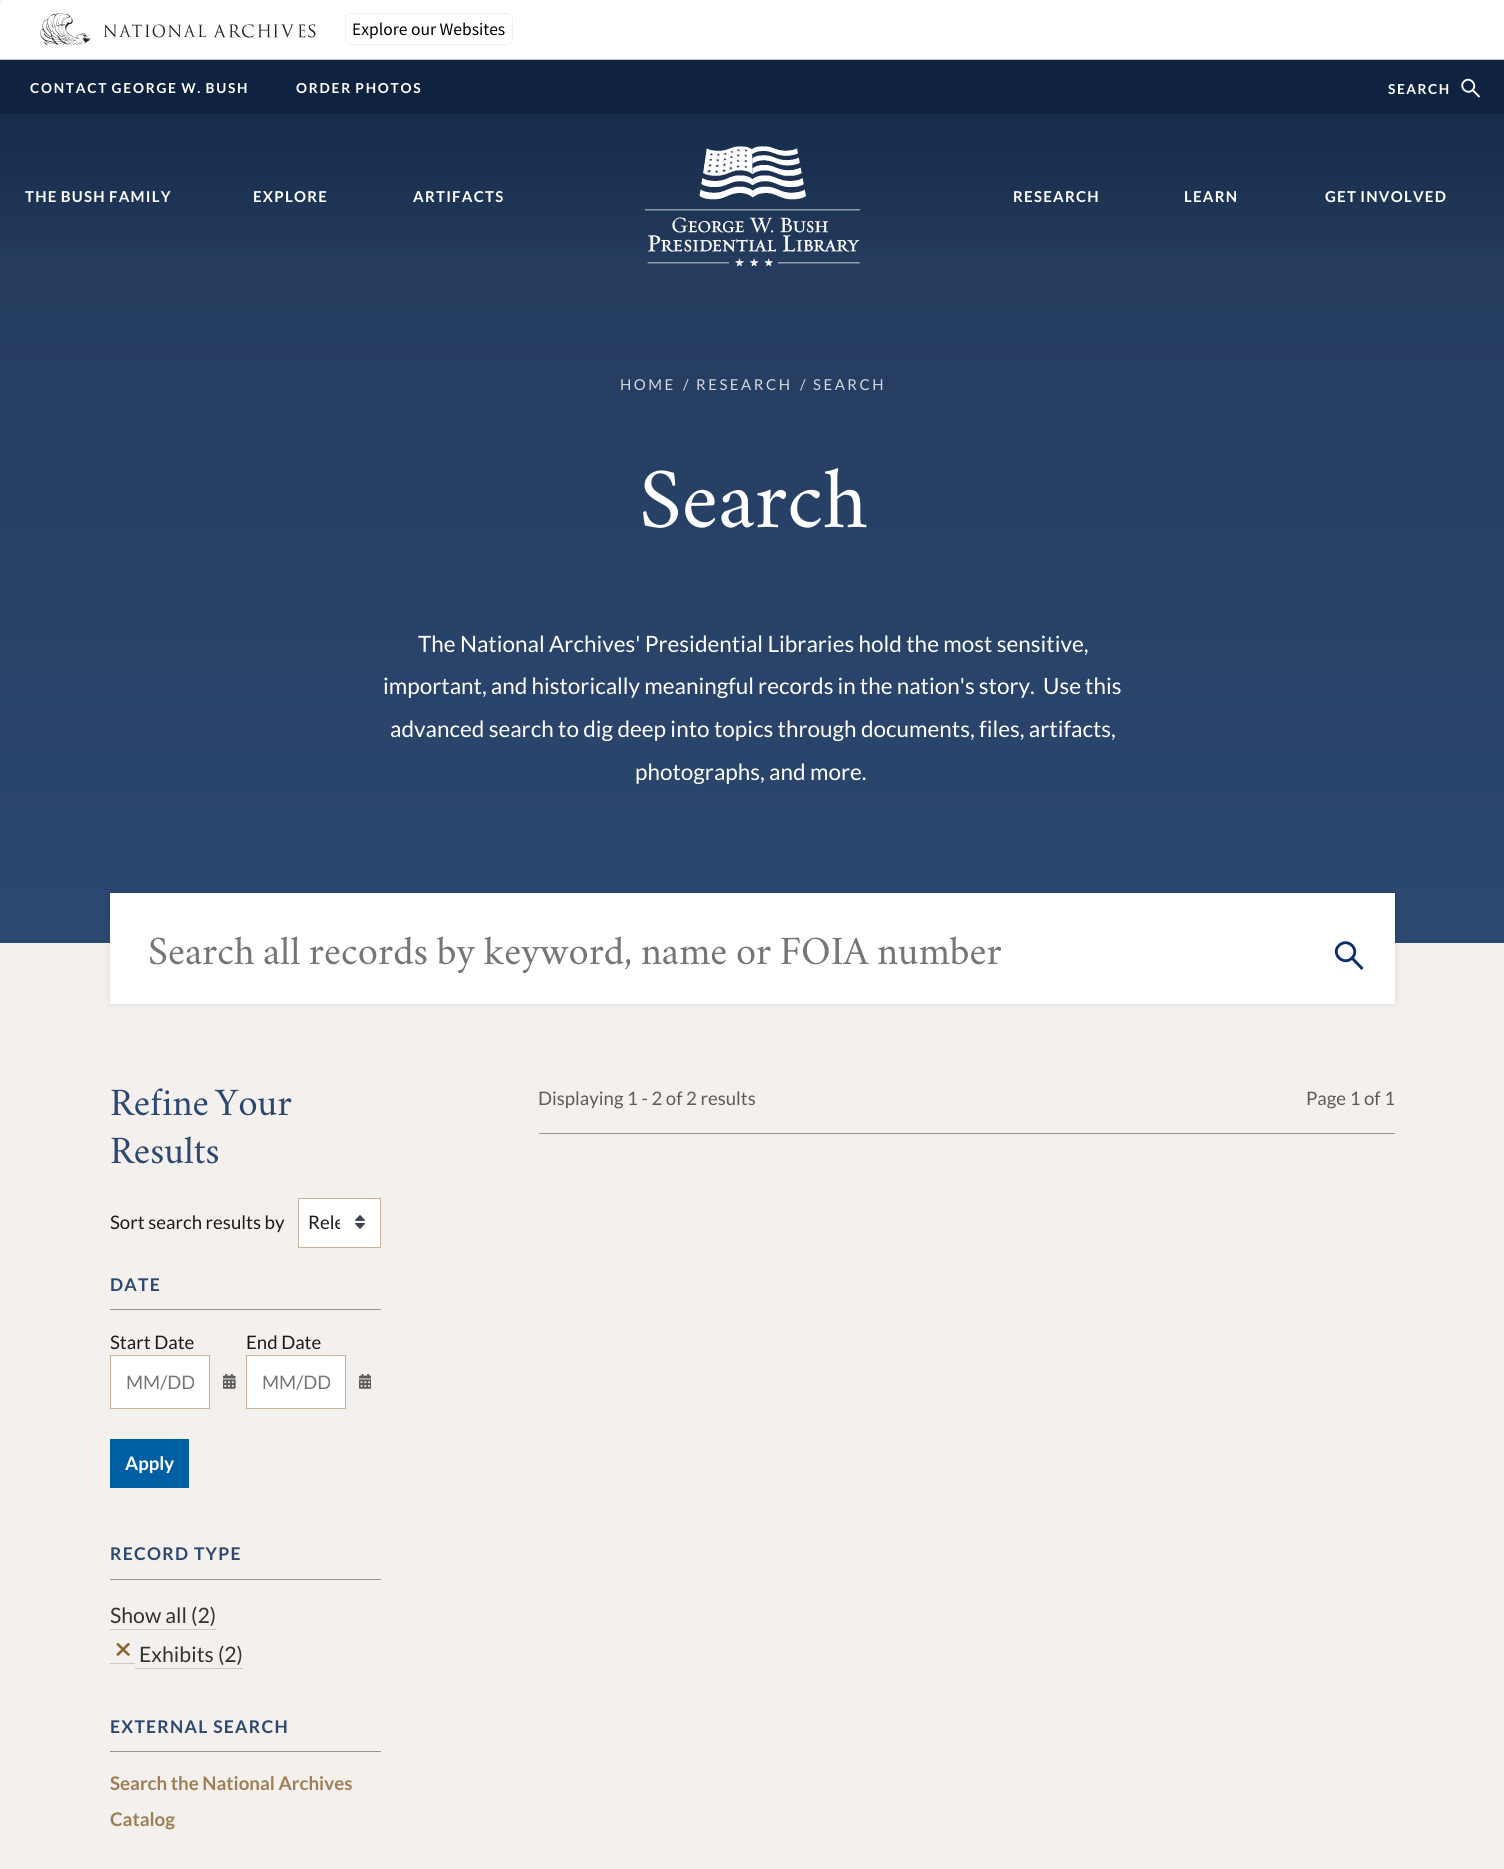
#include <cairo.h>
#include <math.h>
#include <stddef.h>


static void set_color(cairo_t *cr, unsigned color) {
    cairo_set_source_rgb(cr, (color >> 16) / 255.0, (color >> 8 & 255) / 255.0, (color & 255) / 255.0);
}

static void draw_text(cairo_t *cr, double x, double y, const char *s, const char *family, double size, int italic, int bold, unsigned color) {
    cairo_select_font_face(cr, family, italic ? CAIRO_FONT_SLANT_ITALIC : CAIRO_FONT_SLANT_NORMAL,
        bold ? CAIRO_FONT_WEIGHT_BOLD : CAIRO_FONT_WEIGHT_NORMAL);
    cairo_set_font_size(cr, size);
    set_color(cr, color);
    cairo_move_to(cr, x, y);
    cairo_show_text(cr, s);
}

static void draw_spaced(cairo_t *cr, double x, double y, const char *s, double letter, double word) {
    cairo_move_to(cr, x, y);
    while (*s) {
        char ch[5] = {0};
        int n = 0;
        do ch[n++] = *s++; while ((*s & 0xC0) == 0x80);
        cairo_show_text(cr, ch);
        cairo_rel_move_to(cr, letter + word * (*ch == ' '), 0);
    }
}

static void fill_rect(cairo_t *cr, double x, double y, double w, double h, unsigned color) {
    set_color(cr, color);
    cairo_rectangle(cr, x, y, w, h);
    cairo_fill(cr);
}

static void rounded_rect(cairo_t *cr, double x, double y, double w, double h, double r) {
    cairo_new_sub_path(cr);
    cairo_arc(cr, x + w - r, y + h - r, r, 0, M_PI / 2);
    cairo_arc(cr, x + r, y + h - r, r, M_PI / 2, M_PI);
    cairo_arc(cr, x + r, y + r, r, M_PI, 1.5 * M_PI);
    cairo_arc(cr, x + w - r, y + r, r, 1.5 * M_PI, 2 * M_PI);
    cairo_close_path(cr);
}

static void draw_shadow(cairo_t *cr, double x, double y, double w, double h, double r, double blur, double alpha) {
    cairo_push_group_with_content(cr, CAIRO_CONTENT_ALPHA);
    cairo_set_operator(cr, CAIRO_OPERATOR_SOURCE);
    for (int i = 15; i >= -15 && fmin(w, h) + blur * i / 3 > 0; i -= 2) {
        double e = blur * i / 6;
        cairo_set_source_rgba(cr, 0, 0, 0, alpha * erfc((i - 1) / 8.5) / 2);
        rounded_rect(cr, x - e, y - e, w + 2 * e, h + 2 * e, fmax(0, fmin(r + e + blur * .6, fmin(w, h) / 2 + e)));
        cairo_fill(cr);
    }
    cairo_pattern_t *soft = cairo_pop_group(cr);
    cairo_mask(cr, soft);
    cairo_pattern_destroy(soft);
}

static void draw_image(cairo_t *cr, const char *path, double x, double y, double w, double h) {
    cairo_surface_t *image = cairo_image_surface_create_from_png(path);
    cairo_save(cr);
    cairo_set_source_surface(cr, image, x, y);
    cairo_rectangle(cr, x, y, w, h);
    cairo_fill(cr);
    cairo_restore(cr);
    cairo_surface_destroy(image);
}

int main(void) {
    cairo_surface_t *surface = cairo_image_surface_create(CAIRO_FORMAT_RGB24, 1504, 1869);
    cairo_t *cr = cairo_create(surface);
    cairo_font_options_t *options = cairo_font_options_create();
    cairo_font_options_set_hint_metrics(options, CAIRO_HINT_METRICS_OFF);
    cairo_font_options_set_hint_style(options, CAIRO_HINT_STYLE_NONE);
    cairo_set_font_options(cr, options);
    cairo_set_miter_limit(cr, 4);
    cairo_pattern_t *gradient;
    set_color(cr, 0xFFFFFF);
    cairo_paint(cr);
    set_color(cr, 0xF1F1F1);
    cairo_arc(cr, 1.5, 1.5, 1.5, 0, 2 * M_PI);
    cairo_fill(cr);
    draw_image(cr, "assets/img1.png", 40, 13, 276, 32);
    rounded_rect(cr, 345.5, 13.5, 167, 31, 5.5);
    cairo_set_line_width(cr, 1);
    cairo_stroke(cr);
    draw_text(cr, 352, 35, "Explore our Websites", "Source Sans Pro", 17.5, 0, 0, 0x000000);
    fill_rect(cr, 0, 943, 1504, 926, 0xF4F0ED);
    fill_rect(cr, 0, 59, 1504, 1, 0xC6CACE);
    fill_rect(cr, 0, 60, 1504, 54, 0x0F2341);
    cairo_select_font_face(cr, "Lato", CAIRO_FONT_SLANT_NORMAL, CAIRO_FONT_WEIGHT_BOLD);
    cairo_set_font_size(cr, 13.75);
    set_color(cr, 0xFFFFFF);
    draw_spaced(cr, 30, 93, "CONTACT GEORGE W. BUSH", 1.75, -1);
    draw_spaced(cr, 296, 93, "ORDER PHOTOS", 1.75, -1);
    draw_spaced(cr, 1388, 94, "SEARCH", 1.5, 0);
    cairo_new_path(cr);
    cairo_move_to(cr, 1464, 81.5);
    cairo_curve_to(cr, 1458.5, 87, 1467, 95.5, 1472.5, 90);
    cairo_curve_to(cr, 1478, 84.5, 1469.5, 76, 1464, 81.5);
    cairo_close_path(cr);
    cairo_move_to(cr, 1472.5, 90);
    cairo_line_to(cr, 1479.5, 97);
    cairo_set_line_width(cr, 1.9);
    cairo_stroke(cr);
    gradient = cairo_pattern_create_linear(753, 943, 753, 114);
    cairo_pattern_add_color_stop_rgba(gradient, 0, 0.173, 0.282, 0.443, 1);
    cairo_pattern_add_color_stop_rgba(gradient, 1, 0.137, 0.224, 0.353, 1);
    cairo_set_source(cr, gradient);
    cairo_pattern_destroy(gradient);
    cairo_rectangle(cr, 0, 114, 1504, 829);
    cairo_fill(cr);
    gradient = cairo_pattern_create_linear(753, 114, 753, 329);
    cairo_pattern_add_color_stop_rgba(gradient, 0, 0.059, 0.137, 0.255, 0.6);
    cairo_pattern_add_color_stop_rgba(gradient, 0.76, 0.059, 0.137, 0.255, 0);
    cairo_pattern_add_color_stop_rgba(gradient, 0.76, 0, 0, 0, 0);
    cairo_set_source(cr, gradient);
    cairo_pattern_destroy(gradient);
    cairo_rectangle(cr, 0, 114, 1504, 142);
    cairo_fill(cr);
    draw_image(cr, "assets/img2.png", 645, 146, 215, 121);
    cairo_set_font_size(cr, 15);
    set_color(cr, 0xFFFFFF);
    draw_spaced(cr, 25, 202, "THE BUSH FAMILY", 1.25, -1);
    draw_spaced(cr, 253, 202, "EXPLORE", 1.25, 0);
    draw_spaced(cr, 413, 202, "ARTIFACTS", 1.25, 0);
    draw_spaced(cr, 1013, 202, "RESEARCH", 1.25, 0);
    draw_spaced(cr, 1184, 202, "LEARN", 1.25, 0);
    draw_spaced(cr, 1325, 202, "GET INVOLVED", 1.25, -1);
    cairo_select_font_face(cr, "Lato", CAIRO_FONT_SLANT_NORMAL, CAIRO_FONT_WEIGHT_NORMAL);
    set_color(cr, 0xD4D8E0);
    draw_spaced(cr, 620, 390, "HOME", 2.5, 0);
    draw_spaced(cr, 683, 390, "/", 2.5, 0);
    draw_spaced(cr, 696, 390, "RESEARCH", 2.5, 0);
    draw_spaced(cr, 800, 390, "/", 2.5, 0);
    draw_spaced(cr, 813, 390, "SEARCH", 2.5, 0);
    draw_text(cr, 639, 527, "Search", "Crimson", 75, 0, 0, 0xFFFFFF);
    draw_text(cr, 418, 652, "The National Archives' Presidential Libraries hold the most sensitive,", "Lato", 22.5, 0, 0, 0xFFFFFF);
    draw_spaced(cr, 383, 694, "important, and historically meaningful records in the nation's story.  Use this", 0, -0.25);
    draw_text(cr, 390, 737, "advanced search to dig deep into topics through documents, files, artifacts,", "Lato", 22.5, 0, 0, 0xFFFFFF);
    draw_text(cr, 635, 780, "photographs, and more.", "Lato", 22.5, 0, 0, 0xFFFFFF);
    set_color(cr, 0x000000);
    draw_shadow(cr, 110, 893, 1285, 111, 0, 3, 0.1);
    fill_rect(cr, 110, 893, 1285, 111, 0xFFFFFF);
    cairo_new_path(cr);
    cairo_move_to(cr, 1339, 945.5);
    cairo_curve_to(cr, 1330.5, 953.5, 1343.5, 966.5, 1352, 958);
    cairo_curve_to(cr, 1360.5, 949.5, 1347.5, 937, 1339, 945.5);
    cairo_close_path(cr);
    cairo_move_to(cr, 1352.5, 958.5);
    cairo_line_to(cr, 1362.5, 969);
    set_color(cr, 0x0D2D6C);
    cairo_set_line_width(cr, 2.9);
    cairo_stroke(cr);
    draw_text(cr, 148, 964, "Search all records by keyword, name or FOIA number", "Crimson", 35, 0, 0, 0x757575);
    cairo_set_font_size(cr, 33.75);
    set_color(cr, 0x2C4871);
    draw_spaced(cr, 110, 1115, "Refine Your", 0, -2);
    draw_text(cr, 110, 1163, "Results", "Crimson", 33.75, 0, 0, 0x2C4871);
    draw_text(cr, 110, 1229, "Sort search results by", "Lato", 18.6, 0, 0, 0x1B1B1B);
    fill_rect(cr, 299, 1199, 81, 48, 0xFFFFFF);
    draw_image(cr, "assets/img3.png", 355, 1215, 10, 14);
    cairo_rectangle(cr, 298.5, 1198.5, 82, 49);
    set_color(cr, 0xC4B197);
    cairo_set_line_width(cr, 1);
    cairo_stroke(cr);
    cairo_save(cr);
    cairo_rectangle(cr, 309, 1209, 31, 26);
    cairo_clip(cr);
    draw_text(cr, 308, 1229, "Rele", "Lato", 18.6, 0, 0, 0x1B1B1B);
    cairo_restore(cr);
    fill_rect(cr, 110, 1309, 271, 1, 0x949290);
    cairo_select_font_face(cr, "Lato", CAIRO_FONT_SLANT_NORMAL, CAIRO_FONT_WEIGHT_BOLD);
    cairo_set_font_size(cr, 17.5);
    set_color(cr, 0x2C4871);
    draw_spaced(cr, 110, 1291, "DATE", 1.25, 0);
    draw_text(cr, 110, 1349, "Start Date", "Lato", 18.6, 0, 0, 0x1B1B1B);
    set_color(cr, 0xFFFFFF);
    cairo_rectangle(cr, 110.5, 1355.5, 99, 53);
    cairo_fill_preserve(cr);
    set_color(cr, 0xC4B197);
    cairo_stroke(cr);
    cairo_save(cr);
    cairo_rectangle(cr, 126, 1370, 68, 23);
    cairo_clip(cr);
    draw_text(cr, 126, 1389, "MM/DD", "Lato", 18.6, 0, 0, 0x757575);
    cairo_restore(cr);
    draw_image(cr, "assets/img4.png", 223, 1374, 13, 15);
    draw_text(cr, 246, 1349, "End Date", "Lato", 18.6, 0, 0, 0x1B1B1B);
    set_color(cr, 0xFFFFFF);
    cairo_rectangle(cr, 246.5, 1355.5, 99, 53);
    cairo_fill_preserve(cr);
    set_color(cr, 0xC4B197);
    cairo_stroke(cr);
    cairo_save(cr);
    cairo_rectangle(cr, 263, 1370, 67, 23);
    cairo_clip(cr);
    draw_text(cr, 262, 1389, "MM/DD", "Lato", 18.6, 0, 0, 0x757575);
    cairo_restore(cr);
    draw_image(cr, "assets/img5.png", 359, 1374, 12, 15);
    fill_rect(cr, 110, 1439, 79, 49, 0x005EA2);
    draw_text(cr, 125, 1470, "Apply", "Lato", 18.6, 0, 1, 0xFFFFFF);
    fill_rect(cr, 110, 1579, 271, 1, 0x949290);
    cairo_set_font_size(cr, 17.5);
    set_color(cr, 0x2C4871);
    draw_spaced(cr, 110, 1560, "RECORD TYPE", 1.25, 0);
    draw_text(cr, 110, 1623, "Show all (2)", "Lato", 21.25, 0, 0, 0x333333);
    fill_rect(cr, 110, 1629, 106, 1, 0xC6CACE);
    fill_rect(cr, 110, 1663, 25, 1, 0xC6CACE);
    fill_rect(cr, 135, 1668, 108, 1, 0xC6CACE);
    draw_image(cr, "assets/img6.png", 116, 1643, 14, 13);
    draw_text(cr, 139, 1662, "Exhibits (2)", "Lato", 21.25, 0, 0, 0x333333);
    fill_rect(cr, 110, 1751, 271, 1, 0x949290);
    cairo_select_font_face(cr, "Lato", CAIRO_FONT_SLANT_NORMAL, CAIRO_FONT_WEIGHT_BOLD);
    cairo_set_font_size(cr, 17.5);
    set_color(cr, 0x2C4871);
    draw_spaced(cr, 110, 1733, "EXTERNAL SEARCH", 1.25, 0);
    draw_text(cr, 110, 1790, "Search the National Archives", "Lato", 18.75, 0, 1, 0x9E7F55);
    draw_text(cr, 110, 1826, "Catalog", "Lato", 18.75, 0, 1, 0x9E7F55);
    fill_rect(cr, 539, 1133, 856, 1, 0x949290);
    draw_text(cr, 538, 1105, "Displaying 1 - 2 of 2 results", "Lato", 18.6, 0, 0, 0x5C5C5C);
    draw_text(cr, 1306, 1105, "Page 1 of 1", "Lato", 18.6, 0, 0, 0x5C5C5C);
    cairo_surface_write_to_png(surface, "output.png");
    cairo_font_options_destroy(options);
    cairo_destroy(cr);
    cairo_surface_destroy(surface);
    return 0;
}
